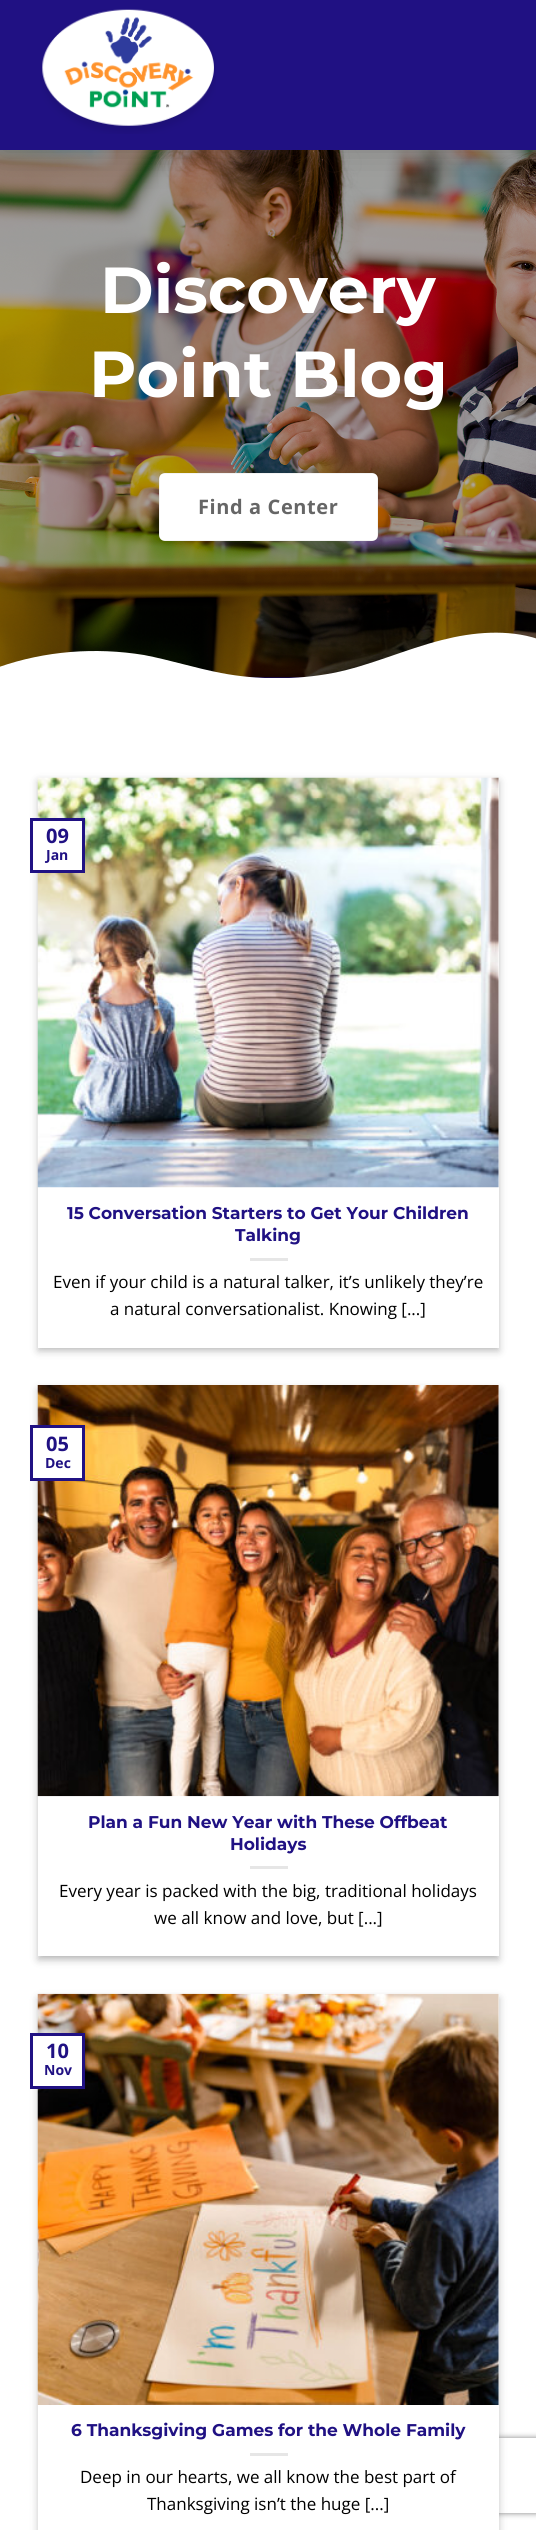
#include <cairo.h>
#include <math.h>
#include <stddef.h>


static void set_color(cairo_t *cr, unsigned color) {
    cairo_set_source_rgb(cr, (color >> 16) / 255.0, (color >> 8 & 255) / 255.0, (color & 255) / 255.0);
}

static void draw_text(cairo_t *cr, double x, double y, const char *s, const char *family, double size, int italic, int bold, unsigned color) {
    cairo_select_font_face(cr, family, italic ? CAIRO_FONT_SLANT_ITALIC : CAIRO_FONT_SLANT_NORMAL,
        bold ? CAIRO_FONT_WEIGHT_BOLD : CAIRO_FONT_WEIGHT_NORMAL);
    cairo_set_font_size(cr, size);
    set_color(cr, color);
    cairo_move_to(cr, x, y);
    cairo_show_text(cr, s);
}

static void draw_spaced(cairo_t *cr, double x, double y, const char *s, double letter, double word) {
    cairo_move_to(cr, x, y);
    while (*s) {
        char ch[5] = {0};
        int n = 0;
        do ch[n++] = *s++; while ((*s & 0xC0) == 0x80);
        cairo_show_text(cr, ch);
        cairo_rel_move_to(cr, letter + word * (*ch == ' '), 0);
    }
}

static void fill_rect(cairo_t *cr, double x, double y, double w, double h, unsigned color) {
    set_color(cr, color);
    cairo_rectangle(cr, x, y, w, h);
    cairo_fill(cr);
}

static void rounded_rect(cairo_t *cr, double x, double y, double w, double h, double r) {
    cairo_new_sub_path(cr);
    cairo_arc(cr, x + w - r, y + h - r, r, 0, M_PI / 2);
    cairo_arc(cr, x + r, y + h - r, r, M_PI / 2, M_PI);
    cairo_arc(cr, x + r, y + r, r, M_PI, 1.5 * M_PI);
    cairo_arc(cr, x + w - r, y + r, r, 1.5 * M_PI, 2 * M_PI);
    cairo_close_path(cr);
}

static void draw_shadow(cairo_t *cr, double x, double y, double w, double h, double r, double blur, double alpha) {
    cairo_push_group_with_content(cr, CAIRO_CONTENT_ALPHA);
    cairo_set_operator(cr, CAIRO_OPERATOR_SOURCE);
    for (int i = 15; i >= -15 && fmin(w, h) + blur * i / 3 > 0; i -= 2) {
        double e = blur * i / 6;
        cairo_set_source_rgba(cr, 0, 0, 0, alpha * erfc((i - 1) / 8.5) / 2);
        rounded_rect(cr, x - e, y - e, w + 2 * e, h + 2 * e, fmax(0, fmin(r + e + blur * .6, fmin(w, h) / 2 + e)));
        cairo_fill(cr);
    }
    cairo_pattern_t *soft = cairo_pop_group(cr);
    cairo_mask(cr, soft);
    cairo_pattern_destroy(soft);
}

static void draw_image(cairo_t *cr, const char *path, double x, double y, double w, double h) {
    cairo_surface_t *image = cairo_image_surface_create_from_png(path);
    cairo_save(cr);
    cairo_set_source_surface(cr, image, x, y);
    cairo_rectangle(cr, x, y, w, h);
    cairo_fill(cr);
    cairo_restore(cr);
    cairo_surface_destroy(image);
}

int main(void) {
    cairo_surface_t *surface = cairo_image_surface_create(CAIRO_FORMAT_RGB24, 536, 2530);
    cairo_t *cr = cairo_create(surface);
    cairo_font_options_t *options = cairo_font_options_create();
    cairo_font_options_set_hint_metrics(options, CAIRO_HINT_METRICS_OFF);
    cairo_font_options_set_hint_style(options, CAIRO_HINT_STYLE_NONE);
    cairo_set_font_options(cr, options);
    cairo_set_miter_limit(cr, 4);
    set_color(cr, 0xFFFFFF);
    cairo_paint(cr);
    fill_rect(cr, 250, 677, 54, 1, 0x150B58);
    draw_image(cr, "assets/img2.png", 0, 150, 536, 528);
    set_color(cr, 0x000000);
    draw_shadow(cr, 0, 0, 536, 150, 0, 18, 0.2);
    fill_rect(cr, 0, 0, 536, 150, 0x201183);
    draw_image(cr, "assets/img1.png", 40, 9, 176, 125);
    draw_text(cr, 100, 313, "Discovery", "Montserrat", 65, 0, 1, 0xFFFFFF);
    draw_text(cr, 89, 397, "Point Blog", "Montserrat", 65, 0, 1, 0xFFFFFF);
    rounded_rect(cr, 159, 473, 219, 68, 6);
    cairo_fill(cr);
    cairo_rectangle(cr, 159.5, 473.5, 218, 67);
    cairo_set_source_rgba(cr, 0, 0, 0, 0.05);
    cairo_set_line_width(cr, 1);
    cairo_stroke(cr);
    cairo_select_font_face(cr, "Open Sans", CAIRO_FONT_SLANT_NORMAL, CAIRO_FONT_WEIGHT_BOLD);
    cairo_set_font_size(cr, 20);
    set_color(cr, 0x666666);
    draw_spaced(cr, 198, 514, "Find a Center", 0.6, 0);
    set_color(cr, 0xFFFFFF);
    cairo_new_path(cr);
    cairo_move_to(cr, 144, 655);
    cairo_curve_to(cr, 170, 660, 195, 668, 221, 673);
    cairo_curve_to(cr, 258, 680, 296, 680, 333, 673);
    cairo_curve_to(cr, 369, 666, 406, 649, 442, 640);
    cairo_curve_to(cr, 473, 632, 508, 629, 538, 639);
    cairo_line_to(cr, 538, 679);
    cairo_line_to(cr, -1, 679);
    cairo_line_to(cr, -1, 667);
    cairo_curve_to(cr, 45, 651, 95, 647, 144, 655);
    cairo_close_path(cr);
    cairo_fill(cr);
    set_color(cr, 0x000000);
    draw_shadow(cr, 38, 781, 461, 570, 0, 4, 0.23);
    draw_shadow(cr, 43, 786, 451, 560, 0, 4, 0.16);
    fill_rect(cr, 38, 778, 461, 570, 0xFFFFFF);
    draw_image(cr, "assets/img3.png", 37, 777, 462, 411);
    cairo_rectangle(cr, 31.5, 819.5, 52, 52);
    cairo_fill_preserve(cr);
    set_color(cr, 0x201183);
    cairo_set_line_width(cr, 3);
    cairo_stroke(cr);
    draw_text(cr, 46, 843, "09", "Open Sans", 20, 0, 1, 0x201183);
    draw_text(cr, 46, 860, "Jan", "Open Sans", 14, 0, 1, 0x201183);
    draw_text(cr, 67, 1219, "15 Conversation Starters to Get Your Children", "Montserrat", 17, 0, 1, 0x201183);
    draw_text(cr, 235, 1241, "Talking", "Montserrat", 17, 0, 1, 0x201183);
    fill_rect(cr, 250, 1258, 38, 3, 0xE6E6E6);
    draw_text(cr, 53, 1288, "Even if your child is a natural talker, it’s unlikely they’re", "Open Sans", 17, 0, 0, 0x000000);
    draw_text(cr, 110, 1315, "a natural conversationalist. Knowing [...]", "Open Sans", 17, 0, 0, 0x000000);
    set_color(cr, 0x000000);
    draw_shadow(cr, 38, 1389, 461, 571, 0, 4, 0.23);
    draw_shadow(cr, 43, 1394, 451, 561, 0, 4, 0.16);
    fill_rect(cr, 38, 1385, 461, 571, 0xFFFFFF);
    draw_image(cr, "assets/img4.png", 37, 1385, 462, 412);
    cairo_rectangle(cr, 31.5, 1426.5, 52, 53);
    cairo_fill_preserve(cr);
    set_color(cr, 0x201183);
    cairo_stroke(cr);
    draw_text(cr, 46, 1451, "05", "Open Sans", 20, 0, 1, 0x201183);
    draw_text(cr, 45, 1468, "Dec", "Open Sans", 14, 0, 1, 0x201183);
    draw_text(cr, 88, 1828, "Plan a Fun New Year with These Offbeat", "Montserrat", 17, 0, 1, 0x201183);
    draw_text(cr, 230, 1850, "Holidays", "Montserrat", 17, 0, 1, 0x201183);
    fill_rect(cr, 250, 1866, 38, 3, 0xE6E6E6);
    draw_text(cr, 59, 1897, "Every year is packed with the big, traditional holidays", "Open Sans", 17, 0, 0, 0x000000);
    draw_text(cr, 154, 1924, "we all know and love, but [...]", "Open Sans", 17, 0, 0, 0x000000);
    set_color(cr, 0x000000);
    draw_shadow(cr, 38, 1998, 461, 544, 0, 4, 0.23);
    cairo_save(cr);
    cairo_set_fill_rule(cr, CAIRO_FILL_RULE_EVEN_ODD);
    cairo_new_path(cr);
    cairo_move_to(cr, 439, 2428);
    cairo_line_to(cr, 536, 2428);
    cairo_line_to(cr, 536, 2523);
    cairo_line_to(cr, 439, 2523);
    cairo_close_path(cr);
    cairo_move_to(cr, 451.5, 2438);
    cairo_line_to(cr, 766.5, 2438);
    cairo_curve_to(cr, 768, 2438, 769, 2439, 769, 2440.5);
    cairo_line_to(cr, 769, 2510.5);
    cairo_curve_to(cr, 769, 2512, 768, 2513, 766.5, 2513);
    cairo_line_to(cr, 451.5, 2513);
    cairo_curve_to(cr, 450, 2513, 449, 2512, 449, 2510.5);
    cairo_line_to(cr, 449, 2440.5);
    cairo_curve_to(cr, 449, 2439, 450, 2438, 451.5, 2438);
    cairo_close_path(cr);
    cairo_clip(cr);
    set_color(cr, 0x808080);
    draw_shadow(cr, 449, 2438, 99, 75, 2.5, 3, 1);
    cairo_restore(cr);
    fill_rect(cr, 38, 1994, 461, 536, 0xFFFFFF);
    draw_image(cr, "assets/img5.png", 37, 1993, 462, 412);
    cairo_rectangle(cr, 31.5, 2034.5, 52, 53);
    cairo_fill_preserve(cr);
    set_color(cr, 0x201183);
    cairo_stroke(cr);
    draw_text(cr, 46, 2058, "10", "Open Sans", 20, 0, 1, 0x201183);
    draw_text(cr, 44, 2075, "Nov", "Open Sans", 14, 0, 1, 0x201183);
    draw_text(cr, 71, 2436, "6 Thanksgiving Games for the Whole Family", "Montserrat", 17, 0, 1, 0x201183);
    fill_rect(cr, 250, 2453, 38, 3, 0xE6E6E6);
    draw_text(cr, 80, 2483, "Deep in our hearts, we all know the best part of", "Open Sans", 17, 0, 0, 0x000000);
    draw_text(cr, 147, 2510, "Thanksgiving isn’t the huge [...]", "Open Sans", 17, 0, 0, 0x000000);
    cairo_surface_write_to_png(surface, "output.png");
    cairo_font_options_destroy(options);
    cairo_destroy(cr);
    cairo_surface_destroy(surface);
    return 0;
}
